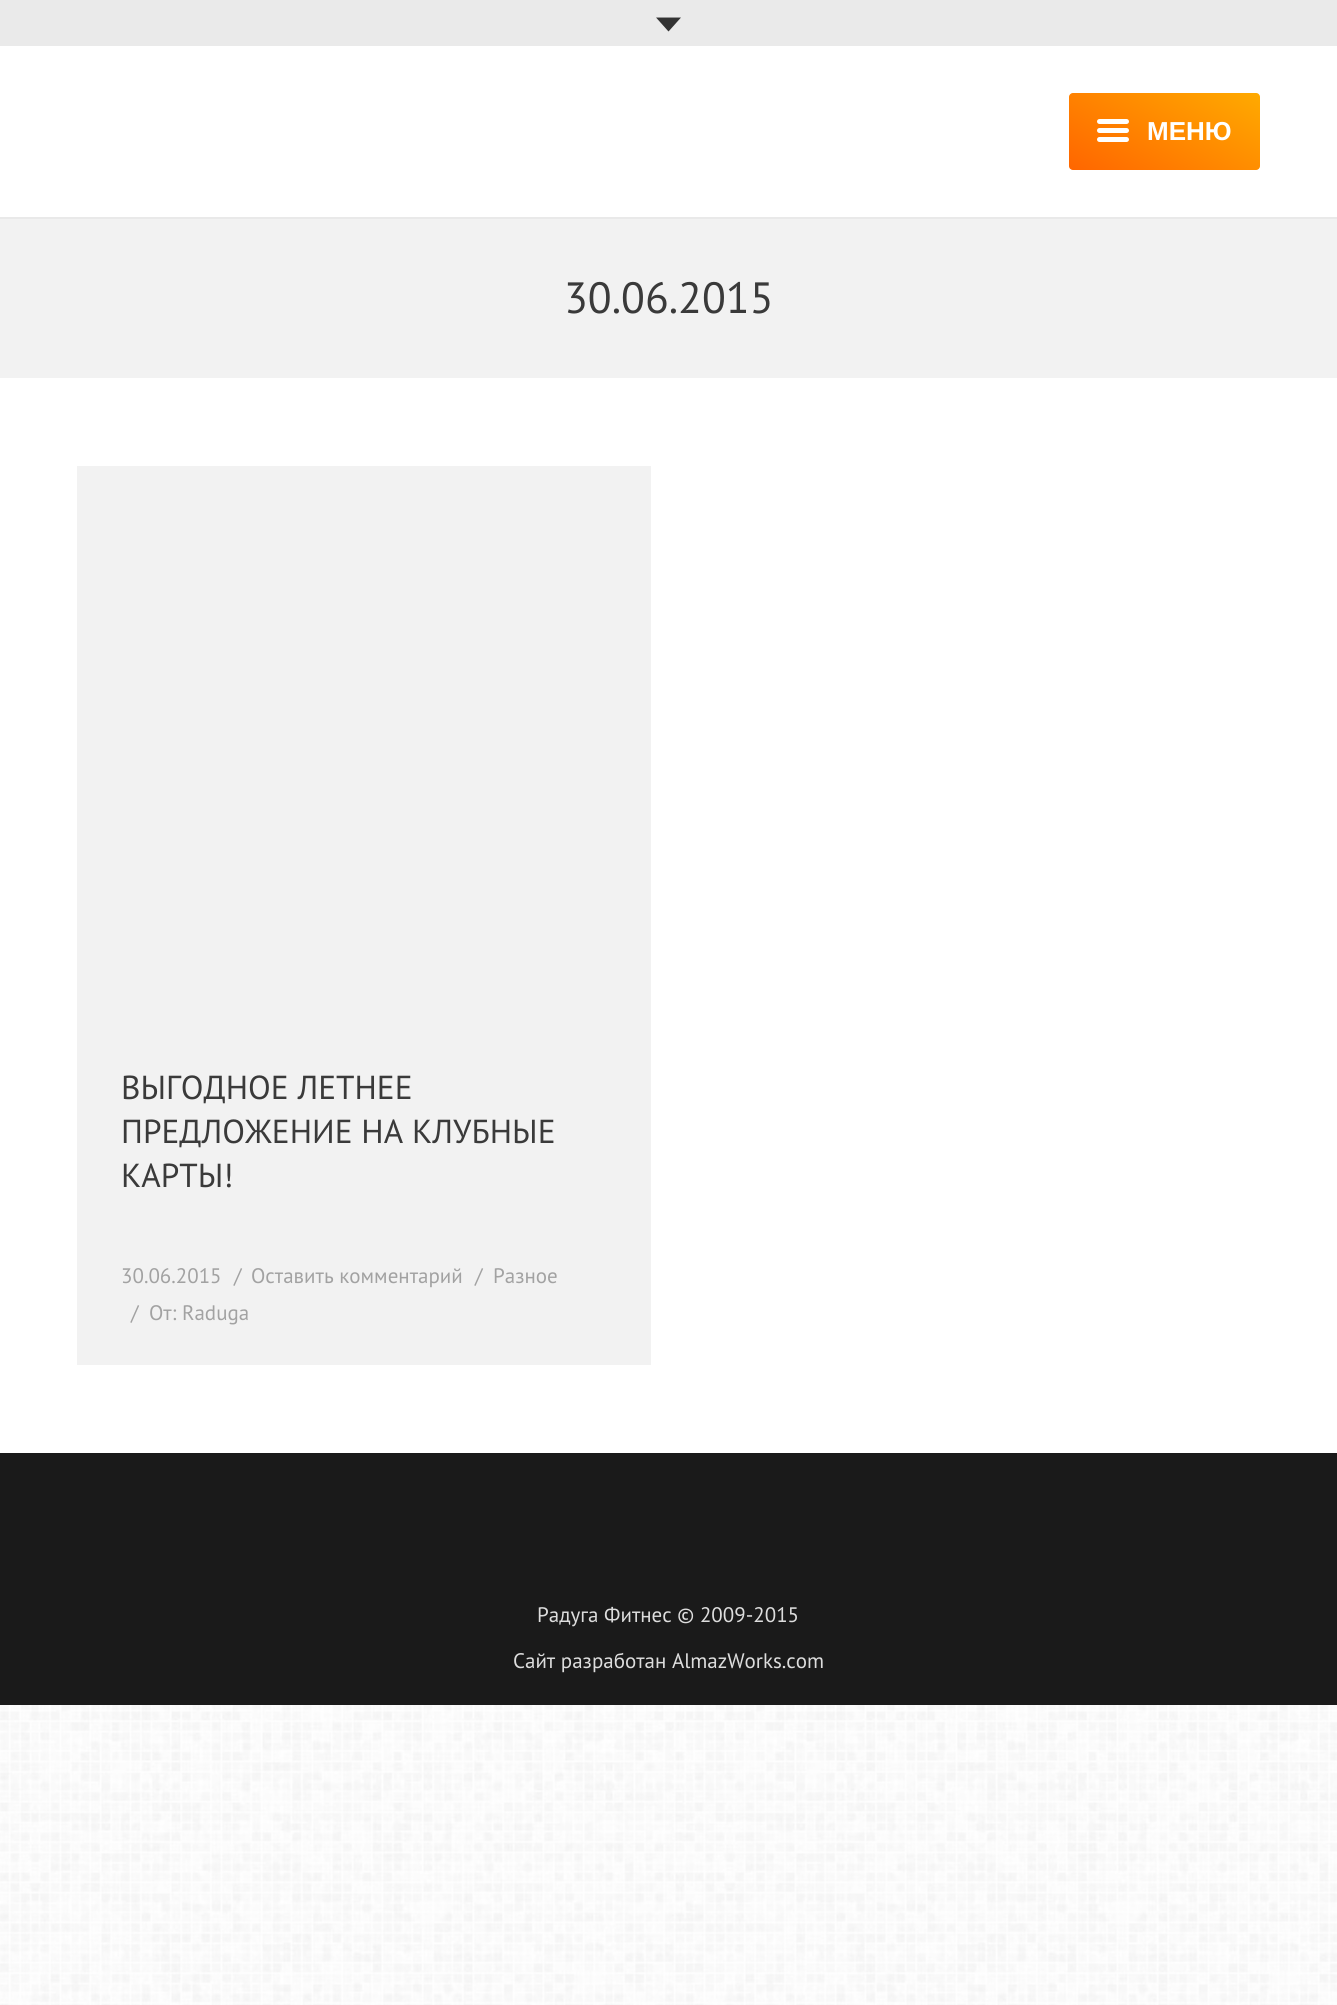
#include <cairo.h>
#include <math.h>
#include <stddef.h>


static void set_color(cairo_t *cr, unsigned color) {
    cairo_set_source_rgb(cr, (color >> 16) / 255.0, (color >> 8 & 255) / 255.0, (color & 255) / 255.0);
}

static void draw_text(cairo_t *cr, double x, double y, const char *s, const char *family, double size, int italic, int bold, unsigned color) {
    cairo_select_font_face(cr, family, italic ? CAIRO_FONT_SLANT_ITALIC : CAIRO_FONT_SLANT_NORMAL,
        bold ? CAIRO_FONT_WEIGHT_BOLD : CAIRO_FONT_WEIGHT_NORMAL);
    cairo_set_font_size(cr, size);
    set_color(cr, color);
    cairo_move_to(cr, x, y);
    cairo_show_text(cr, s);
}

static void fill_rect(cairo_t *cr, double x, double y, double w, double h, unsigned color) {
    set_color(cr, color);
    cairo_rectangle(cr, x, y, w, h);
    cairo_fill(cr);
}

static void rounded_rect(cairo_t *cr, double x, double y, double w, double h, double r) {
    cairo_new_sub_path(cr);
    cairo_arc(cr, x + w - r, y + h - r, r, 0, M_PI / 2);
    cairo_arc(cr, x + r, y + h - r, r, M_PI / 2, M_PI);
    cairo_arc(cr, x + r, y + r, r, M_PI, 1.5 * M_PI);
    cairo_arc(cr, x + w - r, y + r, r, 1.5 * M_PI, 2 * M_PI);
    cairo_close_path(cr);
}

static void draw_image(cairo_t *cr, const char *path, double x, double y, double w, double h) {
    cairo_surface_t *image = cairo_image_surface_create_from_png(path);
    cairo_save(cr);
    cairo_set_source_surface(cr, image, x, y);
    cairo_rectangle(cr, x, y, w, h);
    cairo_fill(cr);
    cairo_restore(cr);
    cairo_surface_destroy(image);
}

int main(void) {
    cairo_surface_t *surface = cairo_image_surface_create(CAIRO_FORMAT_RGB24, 1337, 2005);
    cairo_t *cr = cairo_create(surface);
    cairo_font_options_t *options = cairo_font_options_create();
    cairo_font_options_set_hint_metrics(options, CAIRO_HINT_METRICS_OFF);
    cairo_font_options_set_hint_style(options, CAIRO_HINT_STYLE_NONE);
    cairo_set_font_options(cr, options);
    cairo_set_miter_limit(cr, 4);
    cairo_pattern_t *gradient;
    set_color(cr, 0xFFFFFF);
    cairo_paint(cr);
    draw_image(cr, "assets/img1.png", 0, 1705, 1337, 300);
    fill_rect(cr, 0, 217, 1337, 2, 0xE9E9E9);
    fill_rect(cr, 0, 0, 1337, 46, 0xEAEAEA);
    set_color(cr, 0x333333);
    cairo_new_path(cr);
    cairo_move_to(cr, 656, 17.5);
    cairo_line_to(cr, 681, 17.5);
    cairo_line_to(cr, 668.5, 31.5);
    cairo_close_path(cr);
    cairo_fill(cr);
    gradient = cairo_pattern_create_linear(1124, 201, 1205, 61);
    cairo_pattern_add_color_stop_rgba(gradient, 0, 1, 0.4, 0, 1);
    cairo_pattern_add_color_stop_rgba(gradient, 1, 1, 0.667, 0, 1);
    cairo_set_source(cr, gradient);
    cairo_pattern_destroy(gradient);
    rounded_rect(cr, 1069, 93, 191, 77, 4);
    cairo_fill(cr);
    set_color(cr, 0xFFFFFF);
    rounded_rect(cr, 1097, 128, 32, 5, 2.5);
    cairo_fill(cr);
    rounded_rect(cr, 1097, 119, 32, 5, 2.5);
    cairo_fill(cr);
    rounded_rect(cr, 1097, 137, 32, 5, 2.5);
    cairo_fill(cr);
    draw_text(cr, 1147, 140, "МЕНЮ", "Liberation Sans", 26, 0, 1, 0xFFFFFF);
    fill_rect(cr, 0, 219, 1337, 159, 0xF2F2F2);
    draw_text(cr, 564, 313, "30.06.2015", "PT Sans", 43.75, 0, 0, 0x3A3A3A);
    fill_rect(cr, 77, 466, 574, 899, 0xF2F2F2);
    draw_text(cr, 121, 1099, "ВЫГОДНОЕ ЛЕТНЕЕ", "PT Sans", 33.25, 0, 0, 0x3A3A3A);
    draw_text(cr, 121, 1143, "ПРЕДЛОЖЕНИЕ НА КЛУБНЫЕ", "PT Sans", 33.25, 0, 0, 0x3A3A3A);
    draw_text(cr, 121, 1187, "КАРТЫ!", "PT Sans", 33.25, 0, 0, 0x3A3A3A);
    draw_text(cr, 121, 1283, "30.06.2015", "PT Sans", 21, 0, 0, 0xA2A2A2);
    draw_text(cr, 234, 1283, "/", "PT Sans", 21, 0, 0, 0xA2A2A2);
    draw_text(cr, 251, 1283, "Оставить комментарий", "PT Sans", 21, 0, 0, 0xA2A2A2);
    draw_text(cr, 475, 1283, "/", "PT Sans", 21, 0, 0, 0xA2A2A2);
    draw_text(cr, 493, 1283, "Разное", "PT Sans", 21, 0, 0, 0xA2A2A2);
    draw_text(cr, 131, 1320, "/", "PT Sans", 21, 0, 0, 0xA2A2A2);
    draw_text(cr, 149, 1320, "От: Raduga", "PT Sans", 21, 0, 0, 0xA2A2A2);
    fill_rect(cr, 0, 1453, 1337, 252, 0x1A1A1A);
    draw_text(cr, 537, 1622, "Радуга Фитнес © 2009-2015", "PT Sans", 21, 0, 0, 0xDDDDDD);
    draw_text(cr, 513, 1668, "Сайт разработан AlmazWorks.com", "PT Sans", 21, 0, 0, 0xDDDDDD);
    cairo_surface_write_to_png(surface, "output.png");
    cairo_font_options_destroy(options);
    cairo_destroy(cr);
    cairo_surface_destroy(surface);
    return 0;
}
